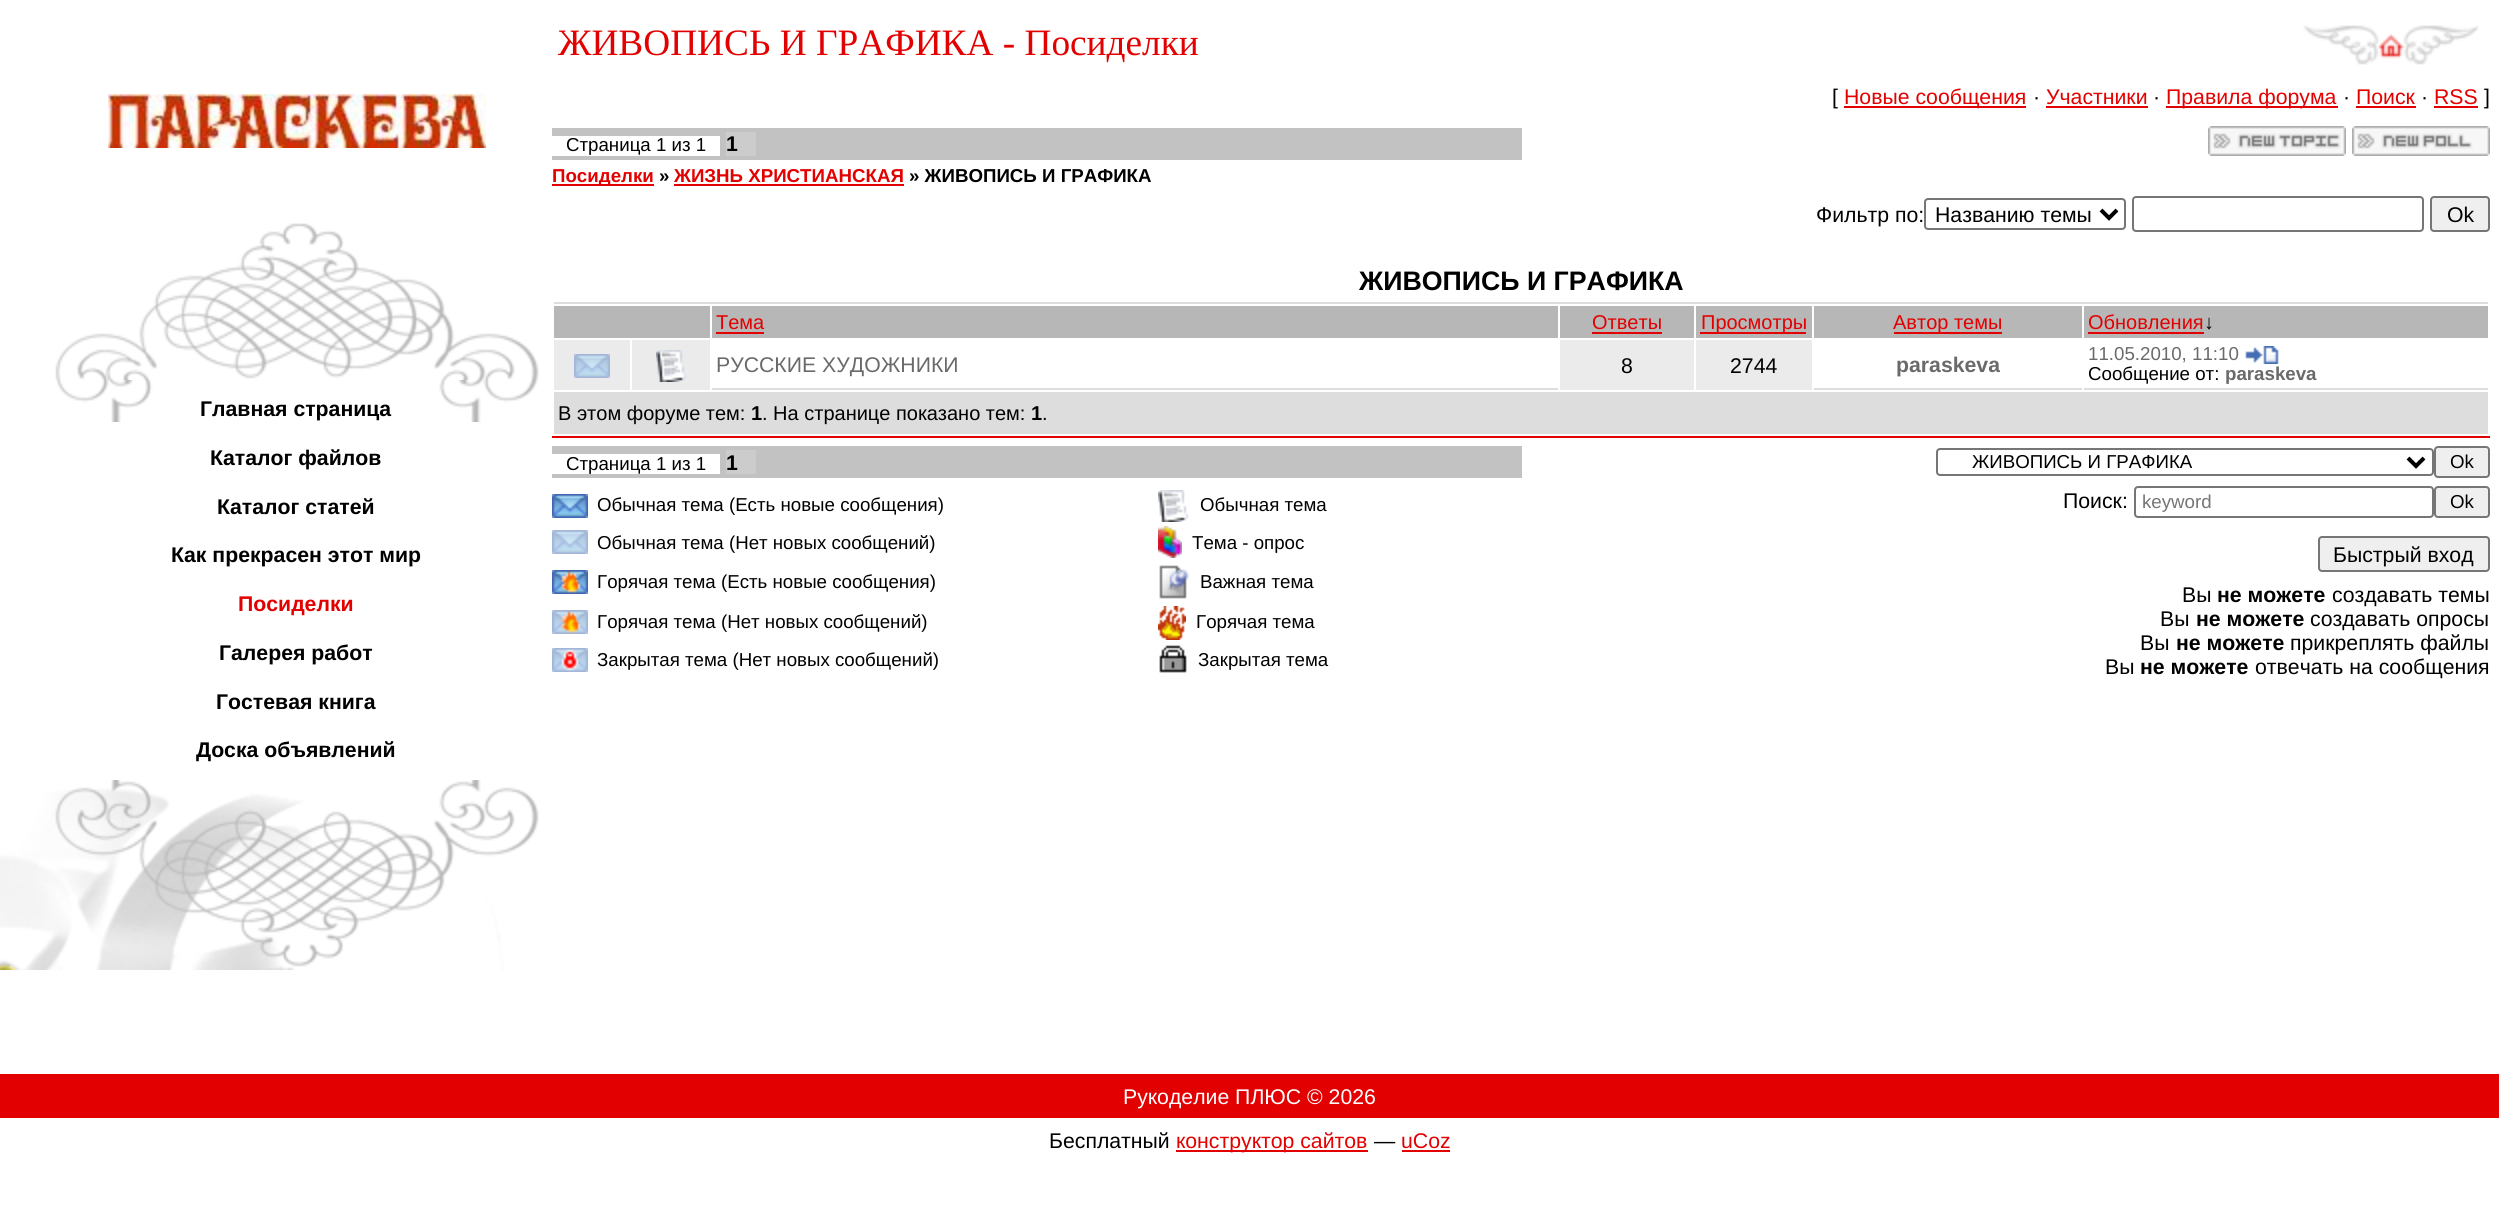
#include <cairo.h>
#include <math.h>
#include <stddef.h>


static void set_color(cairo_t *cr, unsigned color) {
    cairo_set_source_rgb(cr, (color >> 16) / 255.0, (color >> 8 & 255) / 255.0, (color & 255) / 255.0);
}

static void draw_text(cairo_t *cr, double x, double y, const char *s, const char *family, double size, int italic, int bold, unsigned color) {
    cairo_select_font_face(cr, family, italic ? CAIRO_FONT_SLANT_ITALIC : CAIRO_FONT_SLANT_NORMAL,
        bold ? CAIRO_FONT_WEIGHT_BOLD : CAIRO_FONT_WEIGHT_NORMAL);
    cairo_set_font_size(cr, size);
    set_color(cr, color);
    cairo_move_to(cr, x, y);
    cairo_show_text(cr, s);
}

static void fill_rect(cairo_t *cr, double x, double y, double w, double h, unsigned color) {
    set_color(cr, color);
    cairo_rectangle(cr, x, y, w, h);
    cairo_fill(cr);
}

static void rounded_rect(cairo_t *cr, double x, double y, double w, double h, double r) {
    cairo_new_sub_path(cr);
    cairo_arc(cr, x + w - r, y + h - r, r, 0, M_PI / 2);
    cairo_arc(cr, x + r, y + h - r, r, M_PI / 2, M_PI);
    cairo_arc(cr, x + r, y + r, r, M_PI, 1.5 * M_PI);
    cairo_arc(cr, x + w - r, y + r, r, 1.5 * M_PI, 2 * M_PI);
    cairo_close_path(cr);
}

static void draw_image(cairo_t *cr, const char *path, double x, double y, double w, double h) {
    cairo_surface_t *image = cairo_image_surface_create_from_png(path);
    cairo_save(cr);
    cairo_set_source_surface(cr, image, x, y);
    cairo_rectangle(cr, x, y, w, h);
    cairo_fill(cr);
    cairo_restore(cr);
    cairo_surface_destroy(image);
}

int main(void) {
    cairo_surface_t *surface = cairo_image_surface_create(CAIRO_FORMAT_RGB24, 2499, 1222);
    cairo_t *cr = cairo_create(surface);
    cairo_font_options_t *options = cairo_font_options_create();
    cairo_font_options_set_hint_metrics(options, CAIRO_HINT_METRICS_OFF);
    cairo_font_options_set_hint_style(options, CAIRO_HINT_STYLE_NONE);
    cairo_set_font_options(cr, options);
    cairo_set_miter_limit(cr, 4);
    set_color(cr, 0xFFFFFF);
    cairo_paint(cr);
    draw_text(cr, 558, 55, "ЖИВОПИСЬ И ГРАФИКА - Посиделки", "Liberation Serif", 37.3, 0, 0, 0xE30000);
    draw_image(cr, "assets/img1.png", 2303, 25, 176, 40);
    draw_image(cr, "assets/img2.png", 108, 94, 378, 54);
    draw_image(cr, "assets/img3.png", 55, 223, 484, 157);
    draw_image(cr, "assets/img4.png", 56, 380, 482, 42);
    draw_text(cr, 200, 416, "Главная страница", "Liberation Sans", 21.25, 0, 1, 0x000000);
    draw_text(cr, 210, 465, "Каталог файлов", "Liberation Sans", 21.25, 0, 1, 0x000000);
    draw_text(cr, 217, 514, "Каталог статей", "Liberation Sans", 21.25, 0, 1, 0x000000);
    draw_text(cr, 171, 562, "Как прекрасен этот мир", "Liberation Sans", 21.25, 0, 1, 0x000000);
    draw_text(cr, 238, 611, "Посиделки", "Liberation Sans", 21.25, 0, 1, 0xE30000);
    draw_text(cr, 219, 660, "Галерея работ", "Liberation Sans", 21.25, 0, 1, 0x000000);
    draw_text(cr, 216, 709, "Гостевая книга", "Liberation Sans", 21.25, 0, 1, 0x000000);
    draw_text(cr, 196, 757, "Доска объявлений", "Liberation Sans", 21.25, 0, 1, 0x000000);
    draw_image(cr, "assets/img5.png", 0, 780, 539, 190);
    draw_text(cr, 1832, 104, "[", "Liberation Sans", 21.25, 0, 0, 0x000000);
    fill_rect(cr, 1844, 106, 182, 2, 0xE30000);
    draw_text(cr, 1844, 104, "Новые сообщения", "Liberation Sans", 21.25, 0, 0, 0xE30000);
    draw_text(cr, 2033, 104, "·", "Liberation Sans", 21.25, 0, 0, 0x000000);
    draw_text(cr, 2046, 104, "Участники", "Liberation Sans", 21.25, 0, 0, 0xE30000);
    fill_rect(cr, 2046, 106, 102, 2, 0xE30000);
    draw_text(cr, 2153, 104, "·", "Liberation Sans", 21.25, 0, 0, 0x000000);
    fill_rect(cr, 2166, 106, 172, 2, 0xE30000);
    draw_text(cr, 2166, 104, "Правила форума", "Liberation Sans", 21.25, 0, 0, 0xE30000);
    draw_text(cr, 2343, 104, "·", "Liberation Sans", 21.25, 0, 0, 0x000000);
    draw_text(cr, 2356, 104, "Поиск", "Liberation Sans", 21.25, 0, 0, 0xE30000);
    fill_rect(cr, 2356, 106, 60, 2, 0xE30000);
    draw_text(cr, 2421, 104, "·", "Liberation Sans", 21.25, 0, 0, 0x000000);
    draw_text(cr, 2434, 104, "RSS", "Liberation Sans", 21.25, 0, 0, 0xE30000);
    fill_rect(cr, 2434, 106, 44, 2, 0xE30000);
    draw_text(cr, 2484, 104, "]", "Liberation Sans", 21.25, 0, 0, 0x000000);
    fill_rect(cr, 552, 128, 970, 32, 0xC2C2C2);
    fill_rect(cr, 552, 136, 168, 20, 0xFFFFFF);
    draw_text(cr, 566, 151, "Страница 1 из 1", "Liberation Sans", 18.7, 0, 0, 0x000000);
    fill_rect(cr, 726, 132, 30, 24, 0xCCCCCC);
    draw_text(cr, 726, 151, "1", "Liberation Sans", 21.25, 0, 1, 0x000000);
    draw_image(cr, "assets/img6.png", 2208, 126, 138, 30);
    draw_image(cr, "assets/img7.png", 2352, 126, 138, 30);
    fill_rect(cr, 552, 184, 102, 2, 0xE30000);
    draw_text(cr, 552, 182, "Посиделки", "Liberation Sans", 18.7, 0, 1, 0xE30000);
    draw_text(cr, 659, 182, "»", "Liberation Sans", 18.7, 0, 1, 0x000000);
    draw_text(cr, 674, 182, "ЖИЗНЬ ХРИСТИАНСКАЯ", "Liberation Sans", 18.7, 0, 1, 0xE30000);
    fill_rect(cr, 674, 184, 230, 2, 0xE30000);
    draw_text(cr, 909, 182, "» ЖИВОПИСЬ И ГРАФИКА", "Liberation Sans", 18.7, 0, 1, 0x000000);
    draw_text(cr, 1816, 222, "Фильтр по:", "Liberation Sans", 21.25, 0, 0, 0x000000);
    rounded_rect(cr, 1925, 199, 200, 30, 3);
    set_color(cr, 0x767676);
    cairo_stroke(cr);
    cairo_new_path(cr);
    cairo_move_to(cr, 2101, 210);
    cairo_line_to(cr, 2109, 218);
    cairo_line_to(cr, 2117, 210);
    set_color(cr, 0x000000);
    cairo_set_line_width(cr, 4);
    cairo_stroke(cr);
    draw_text(cr, 1935, 222, "Названию темы", "Liberation Sans", 21.25, 0, 0, 0x000000);
    rounded_rect(cr, 2133, 197, 290, 34, 3);
    set_color(cr, 0x767676);
    cairo_set_line_width(cr, 2);
    cairo_stroke(cr);
    set_color(cr, 0xEFEFEF);
    rounded_rect(cr, 2431, 197, 58, 34, 3);
    cairo_fill_preserve(cr);
    set_color(cr, 0x767676);
    cairo_stroke(cr);
    draw_text(cr, 2447, 222, "Ok", "Liberation Sans", 21.25, 0, 0, 0x000000);
    fill_rect(cr, 552, 436, 1938, 2, 0xE30000);
    fill_rect(cr, 554, 302, 1934, 2, 0xDDDDDD);
    draw_text(cr, 1359, 290, "ЖИВОПИСЬ И ГРАФИКА", "Liberation Sans", 26.75, 0, 1, 0x000000);
    fill_rect(cr, 554, 306, 156, 32, 0xB7B7B7);
    fill_rect(cr, 712, 306, 846, 32, 0xB7B7B7);
    draw_text(cr, 716, 329, "Тема", "Liberation Sans", 20, 0, 0, 0xE30000);
    fill_rect(cr, 716, 332, 48, 2, 0xE30000);
    fill_rect(cr, 1560, 306, 134, 32, 0xB7B7B7);
    draw_text(cr, 1592, 329, "Ответы", "Liberation Sans", 20, 0, 0, 0xE30000);
    fill_rect(cr, 1592, 332, 70, 2, 0xE30000);
    fill_rect(cr, 1696, 306, 116, 32, 0xB7B7B7);
    fill_rect(cr, 1700, 332, 106, 2, 0xE30000);
    draw_text(cr, 1701, 329, "Просмотры", "Liberation Sans", 20, 0, 0, 0xE30000);
    fill_rect(cr, 1814, 306, 268, 32, 0xB7B7B7);
    fill_rect(cr, 1894, 332, 108, 2, 0xE30000);
    draw_text(cr, 1893, 329, "Автор темы", "Liberation Sans", 20, 0, 0, 0xE30000);
    fill_rect(cr, 2084, 306, 404, 32, 0xB7B7B7);
    draw_text(cr, 2088, 329, "Обновления", "Liberation Sans", 20, 0, 0, 0xE30000);
    fill_rect(cr, 2088, 332, 116, 2, 0xE30000);
    draw_text(cr, 2204, 329, "↓", "Liberation Sans", 20, 0, 0, 0x000000);
    fill_rect(cr, 554, 340, 76, 50, 0xEBEBEB);
    draw_image(cr, "assets/img8.png", 574, 354, 36, 24);
    fill_rect(cr, 632, 340, 78, 50, 0xEBEBEB);
    draw_image(cr, "assets/img9.png", 656, 350, 31, 32);
    fill_rect(cr, 712, 388, 846, 2, 0xDDDDDD);
    draw_text(cr, 716, 372, "РУССКИЕ ХУДОЖНИКИ", "Liberation Sans", 21.25, 0, 0, 0x6A6A6A);
    fill_rect(cr, 1560, 340, 134, 50, 0xEBEBEB);
    draw_text(cr, 1621, 373, "8", "Liberation Sans", 21.25, 0, 0, 0x000000);
    fill_rect(cr, 1696, 340, 116, 50, 0xEBEBEB);
    draw_text(cr, 1730, 373, "2744", "Liberation Sans", 21.25, 0, 0, 0x000000);
    fill_rect(cr, 1814, 388, 268, 2, 0xDDDDDD);
    draw_text(cr, 1896, 372, "paraskeva", "Liberation Sans", 21.25, 0, 1, 0x6A6A6A);
    fill_rect(cr, 2084, 388, 404, 2, 0xDDDDDD);
    draw_text(cr, 2088, 360, "11.05.2010, 11:10", "Liberation Sans", 18.7, 0, 0, 0x6A6A6A);
    draw_image(cr, "assets/img10.png", 2245, 346, 34, 18);
    draw_text(cr, 2088, 380, "Сообщение от:", "Liberation Sans", 18.7, 0, 0, 0x000000);
    draw_text(cr, 2225, 380, "paraskeva", "Liberation Sans", 18.7, 0, 1, 0x6A6A6A);
    fill_rect(cr, 554, 392, 1934, 42, 0xDDDDDD);
    draw_text(cr, 558, 420, "В этом форуме тем:", "Liberation Sans", 20, 0, 0, 0x000000);
    draw_text(cr, 751, 420, "1", "Liberation Sans", 20, 0, 1, 0x000000);
    draw_text(cr, 762, 420, ". На странице показано тем:", "Liberation Sans", 20, 0, 0, 0x000000);
    draw_text(cr, 1031, 420, "1", "Liberation Sans", 20, 0, 1, 0x000000);
    draw_text(cr, 1042, 420, ".", "Liberation Sans", 20, 0, 0, 0x000000);
    fill_rect(cr, 552, 446, 970, 32, 0xC2C2C2);
    fill_rect(cr, 552, 454, 168, 20, 0xFFFFFF);
    draw_text(cr, 566, 470, "Страница 1 из 1", "Liberation Sans", 18.7, 0, 0, 0x000000);
    fill_rect(cr, 726, 450, 30, 24, 0xCCCCCC);
    draw_text(cr, 726, 470, "1", "Liberation Sans", 21.25, 0, 1, 0x000000);
    rounded_rect(cr, 1937, 449, 496, 26, 3);
    set_color(cr, 0x767676);
    cairo_stroke(cr);
    cairo_new_path(cr);
    cairo_move_to(cr, 2408, 458);
    cairo_line_to(cr, 2416, 466);
    cairo_line_to(cr, 2424, 458);
    set_color(cr, 0x000000);
    cairo_set_line_width(cr, 4);
    cairo_stroke(cr);
    draw_text(cr, 1972, 468, "ЖИВОПИСЬ И ГРАФИКА", "Liberation Sans", 18.7, 0, 0, 0x000000);
    set_color(cr, 0xEFEFEF);
    rounded_rect(cr, 2435, 447, 54, 30, 3);
    cairo_fill_preserve(cr);
    set_color(cr, 0x767676);
    cairo_set_line_width(cr, 2);
    cairo_stroke(cr);
    draw_text(cr, 2450, 468, "Ok", "Liberation Sans", 18.7, 0, 0, 0x000000);
    draw_image(cr, "assets/img11.png", 552, 494, 36, 24);
    draw_text(cr, 597, 511, "Обычная тема (Есть новые сообщения)", "Liberation Sans", 18.7, 0, 0, 0x000000);
    draw_image(cr, "assets/img12.png", 1158, 490, 31, 32);
    draw_text(cr, 1200, 511, "Обычная тема", "Liberation Sans", 18.7, 0, 0, 0x000000);
    draw_image(cr, "assets/img8.png", 552, 530, 36, 24);
    draw_text(cr, 597, 549, "Обычная тема (Нет новых сообщений)", "Liberation Sans", 18.7, 0, 0, 0x000000);
    draw_image(cr, "assets/img13.png", 1158, 526, 24, 32);
    draw_text(cr, 1192, 549, "Тема - опрос", "Liberation Sans", 18.7, 0, 0, 0x000000);
    draw_image(cr, "assets/img14.png", 552, 570, 36, 24);
    draw_text(cr, 597, 588, "Горячая тема (Есть новые сообщения)", "Liberation Sans", 18.7, 0, 0, 0x000000);
    draw_image(cr, "assets/img15.png", 1159, 565, 30, 34);
    draw_text(cr, 1200, 588, "Важная тема", "Liberation Sans", 18.7, 0, 0, 0x000000);
    draw_image(cr, "assets/img16.png", 552, 610, 36, 24);
    draw_text(cr, 597, 628, "Горячая тема (Нет новых сообщений)", "Liberation Sans", 18.7, 0, 0, 0x000000);
    draw_image(cr, "assets/img17.png", 1158, 606, 28, 34);
    draw_text(cr, 1196, 628, "Горячая тема", "Liberation Sans", 18.7, 0, 0, 0x000000);
    draw_image(cr, "assets/img18.png", 552, 648, 36, 24);
    draw_text(cr, 597, 666, "Закрытая тема (Нет новых сообщений)", "Liberation Sans", 18.7, 0, 0, 0x000000);
    draw_image(cr, "assets/img19.png", 1159, 645, 28, 28);
    draw_text(cr, 1198, 666, "Закрытая тема", "Liberation Sans", 18.7, 0, 0, 0x000000);
    draw_text(cr, 2063, 508, "Поиск:", "Liberation Sans", 21.25, 0, 0, 0x000000);
    rounded_rect(cr, 2135, 487, 298, 30, 3);
    set_color(cr, 0x767676);
    cairo_stroke(cr);
    draw_text(cr, 2142, 508, "keyword", "Liberation Sans", 18.7, 0, 0, 0x757575);
    set_color(cr, 0xEFEFEF);
    rounded_rect(cr, 2435, 487, 54, 30, 3);
    cairo_fill_preserve(cr);
    set_color(cr, 0x767676);
    cairo_stroke(cr);
    draw_text(cr, 2450, 508, "Ok", "Liberation Sans", 18.7, 0, 0, 0x000000);
    set_color(cr, 0xEFEFEF);
    rounded_rect(cr, 2319, 537, 170, 34, 3);
    cairo_fill_preserve(cr);
    set_color(cr, 0x767676);
    cairo_stroke(cr);
    draw_text(cr, 2333, 562, "Быстрый вход", "Liberation Sans", 21.25, 0, 0, 0x000000);
    draw_text(cr, 2182, 602, "Вы", "Liberation Sans", 21.25, 0, 0, 0x000000);
    draw_text(cr, 2217, 602, "не можете", "Liberation Sans", 21.25, 0, 1, 0x000000);
    draw_text(cr, 2332, 602, "создавать темы", "Liberation Sans", 21.25, 0, 0, 0x000000);
    draw_text(cr, 2160, 626, "Вы", "Liberation Sans", 21.25, 0, 0, 0x000000);
    draw_text(cr, 2196, 626, "не можете", "Liberation Sans", 21.25, 0, 1, 0x000000);
    draw_text(cr, 2310, 626, "создавать опросы", "Liberation Sans", 21.25, 0, 0, 0x000000);
    draw_text(cr, 2140, 650, "Вы", "Liberation Sans", 21.25, 0, 0, 0x000000);
    draw_text(cr, 2176, 650, "не можете", "Liberation Sans", 21.25, 0, 1, 0x000000);
    draw_text(cr, 2290, 650, "прикреплять файлы", "Liberation Sans", 21.25, 0, 0, 0x000000);
    draw_text(cr, 2105, 674, "Вы", "Liberation Sans", 21.25, 0, 0, 0x000000);
    draw_text(cr, 2140, 674, "не можете", "Liberation Sans", 21.25, 0, 1, 0x000000);
    draw_text(cr, 2255, 674, "отвечать на сообщения", "Liberation Sans", 21.25, 0, 0, 0x000000);
    fill_rect(cr, 0, 1074, 2499, 44, 0xE30000);
    draw_text(cr, 1123, 1104, "Рукоделие ПЛЮС © 2026", "Liberation Sans", 21.25, 0, 0, 0xFFFFFF);
    draw_text(cr, 1049, 1148, "Бесплатный", "Liberation Sans", 21.25, 0, 0, 0x000000);
    fill_rect(cr, 1176, 1150, 192, 2, 0xE30000);
    draw_text(cr, 1176, 1148, "конструктор сайтов", "Liberation Sans", 21.25, 0, 0, 0xE30000);
    draw_text(cr, 1374, 1148, "—", "Liberation Sans", 21.25, 0, 0, 0x000000);
    draw_text(cr, 1401, 1148, "uCoz", "Liberation Sans", 21.25, 0, 0, 0xE30000);
    fill_rect(cr, 1402, 1150, 48, 2, 0xE30000);
    cairo_surface_write_to_png(surface, "output.png");
    cairo_font_options_destroy(options);
    cairo_destroy(cr);
    cairo_surface_destroy(surface);
    return 0;
}
